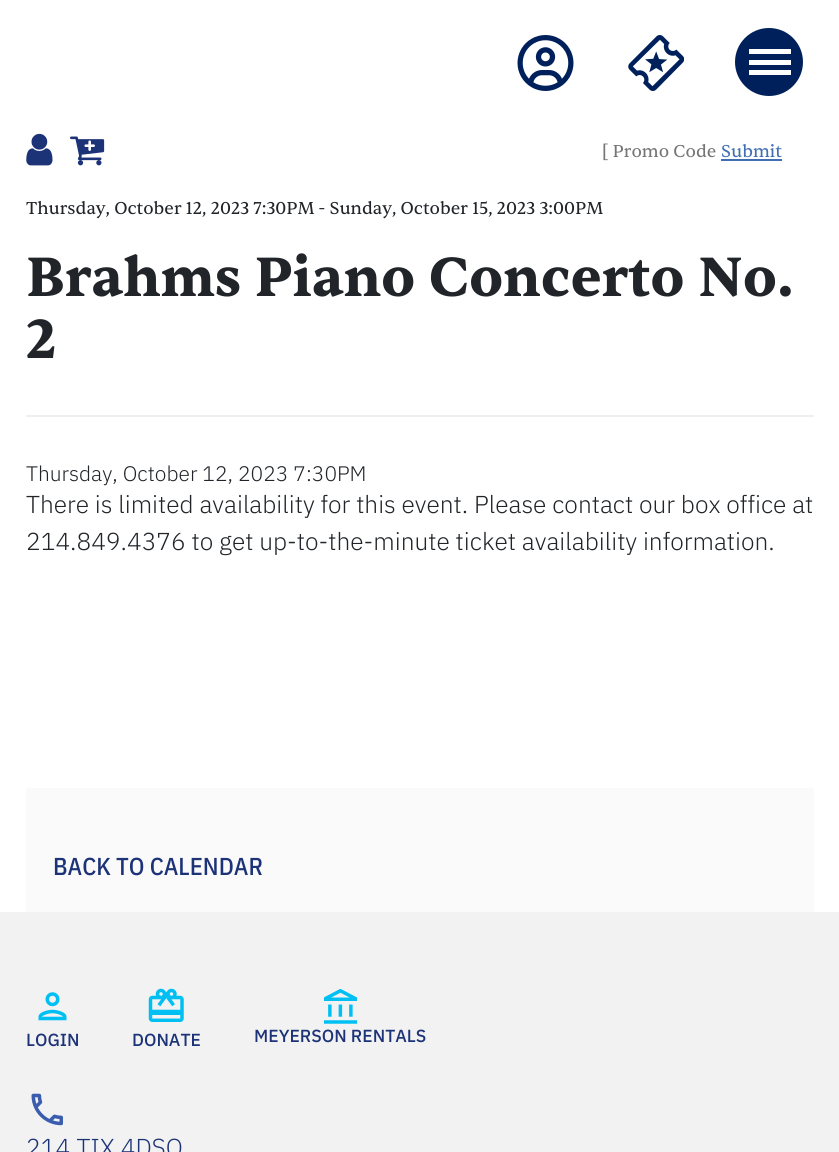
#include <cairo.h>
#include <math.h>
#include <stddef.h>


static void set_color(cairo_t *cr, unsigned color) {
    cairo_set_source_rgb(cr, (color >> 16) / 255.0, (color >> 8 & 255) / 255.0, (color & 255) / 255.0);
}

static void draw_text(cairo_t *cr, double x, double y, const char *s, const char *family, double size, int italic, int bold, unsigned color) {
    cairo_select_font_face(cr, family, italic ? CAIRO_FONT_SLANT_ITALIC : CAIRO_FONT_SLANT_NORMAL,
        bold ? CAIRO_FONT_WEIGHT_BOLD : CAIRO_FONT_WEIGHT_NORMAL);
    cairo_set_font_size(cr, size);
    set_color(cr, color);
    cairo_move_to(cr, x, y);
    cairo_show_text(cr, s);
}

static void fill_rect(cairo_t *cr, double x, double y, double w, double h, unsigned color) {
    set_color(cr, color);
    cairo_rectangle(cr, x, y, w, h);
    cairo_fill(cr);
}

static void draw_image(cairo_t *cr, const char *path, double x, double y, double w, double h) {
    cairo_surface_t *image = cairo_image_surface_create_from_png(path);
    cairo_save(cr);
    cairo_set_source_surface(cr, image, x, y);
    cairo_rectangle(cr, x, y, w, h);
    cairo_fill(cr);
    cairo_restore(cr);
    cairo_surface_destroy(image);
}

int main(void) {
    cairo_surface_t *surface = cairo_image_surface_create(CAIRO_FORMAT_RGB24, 839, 1152);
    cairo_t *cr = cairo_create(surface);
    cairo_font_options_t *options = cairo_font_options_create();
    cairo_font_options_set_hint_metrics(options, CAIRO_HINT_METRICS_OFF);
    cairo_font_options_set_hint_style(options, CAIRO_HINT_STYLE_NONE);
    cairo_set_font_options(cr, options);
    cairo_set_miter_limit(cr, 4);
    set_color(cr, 0xFFFFFF);
    cairo_paint(cr);
    draw_image(cr, "assets/img1.png", 517, 35, 57, 56);
    draw_image(cr, "assets/img2.png", 628, 35, 56, 56);
    set_color(cr, 0x00205B);
    cairo_arc(cr, 769, 62, 34, 0, 2 * M_PI);
    cairo_fill(cr);
    fill_rect(cr, 749, 49, 42, 5, 0xFFFFFF);
    fill_rect(cr, 749, 60, 42, 5, 0xFFFFFF);
    fill_rect(cr, 749, 70, 42, 5, 0xFFFFFF);
    draw_image(cr, "assets/img3.png", 26, 133, 27, 33);
    draw_image(cr, "assets/img4.png", 70, 136, 35, 30);
    draw_text(cr, 602, 157, "[ Promo Code", "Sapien", 17.5, 0, 0, 0x757575);
    draw_text(cr, 721, 157, "Submit", "Sapien", 17.5, 0, 0, 0x3F6FB2);
    fill_rect(cr, 721, 159, 61, 2, 0x3F6FB2);
    fill_rect(cr, 26, 415, 788, 2, 0xEFEFEF);
    draw_text(cr, 26, 214, "Thursday, October 12, 2023 7:30PM - Sunday, October 15, 2023 3:00PM", "Sapien", 17.5, 0, 0, 0x212529);
    draw_text(cr, 26, 296, "Brahms Piano Concerto No.", "Sapien", 56, 0, 1, 0x212529);
    draw_text(cr, 26, 358, "2", "Sapien", 56, 0, 1, 0x212529);
    draw_text(cr, 26, 481, "Thursday, October 12, 2023 7:30PM", "IBM Plex Sans Light", 21, 0, 0, 0x212529);
    draw_text(cr, 26, 513, "There is limited availability for this event. Please contact our box office at", "IBM Plex Sans Light", 24.5, 0, 0, 0x212529);
    draw_text(cr, 26, 550, "214.849.4376 to get up-to-the-minute ticket availability information.", "IBM Plex Sans Light", 24.5, 0, 0, 0x212529);
    fill_rect(cr, 26, 788, 788, 124, 0xFAFAFA);
    draw_text(cr, 53, 875, "BACK TO CALENDAR", "IBM Plex Sans Condensed Medium", 24.5, 0, 0, 0x1D3378);
    fill_rect(cr, 0, 912, 839, 240, 0xF2F2F2);
    draw_image(cr, "assets/img5.png", 38, 992, 29, 29);
    draw_text(cr, 26, 1046, "LOGIN", "IBM Plex Sans Medium", 17.5, 0, 0, 0x1D3378);
    draw_image(cr, "assets/img6.png", 148, 988, 36, 34);
    draw_text(cr, 132, 1046, "DONATE", "IBM Plex Sans Medium", 17.5, 0, 0, 0x1D3378);
    draw_image(cr, "assets/img7.png", 324, 989, 33, 35);
    draw_text(cr, 254, 1042, "MEYERSON RENTALS", "IBM Plex Sans Medium", 17.5, 0, 0, 0x1D3378);
    draw_image(cr, "assets/img8.png", 31, 1093, 32, 33);
    draw_text(cr, 26, 1156, "214.TIX.4DSO", "IBM Plex Sans Light", 24.5, 0, 0, 0x1D3378);
    cairo_surface_write_to_png(surface, "output.png");
    cairo_font_options_destroy(options);
    cairo_destroy(cr);
    cairo_surface_destroy(surface);
    return 0;
}
